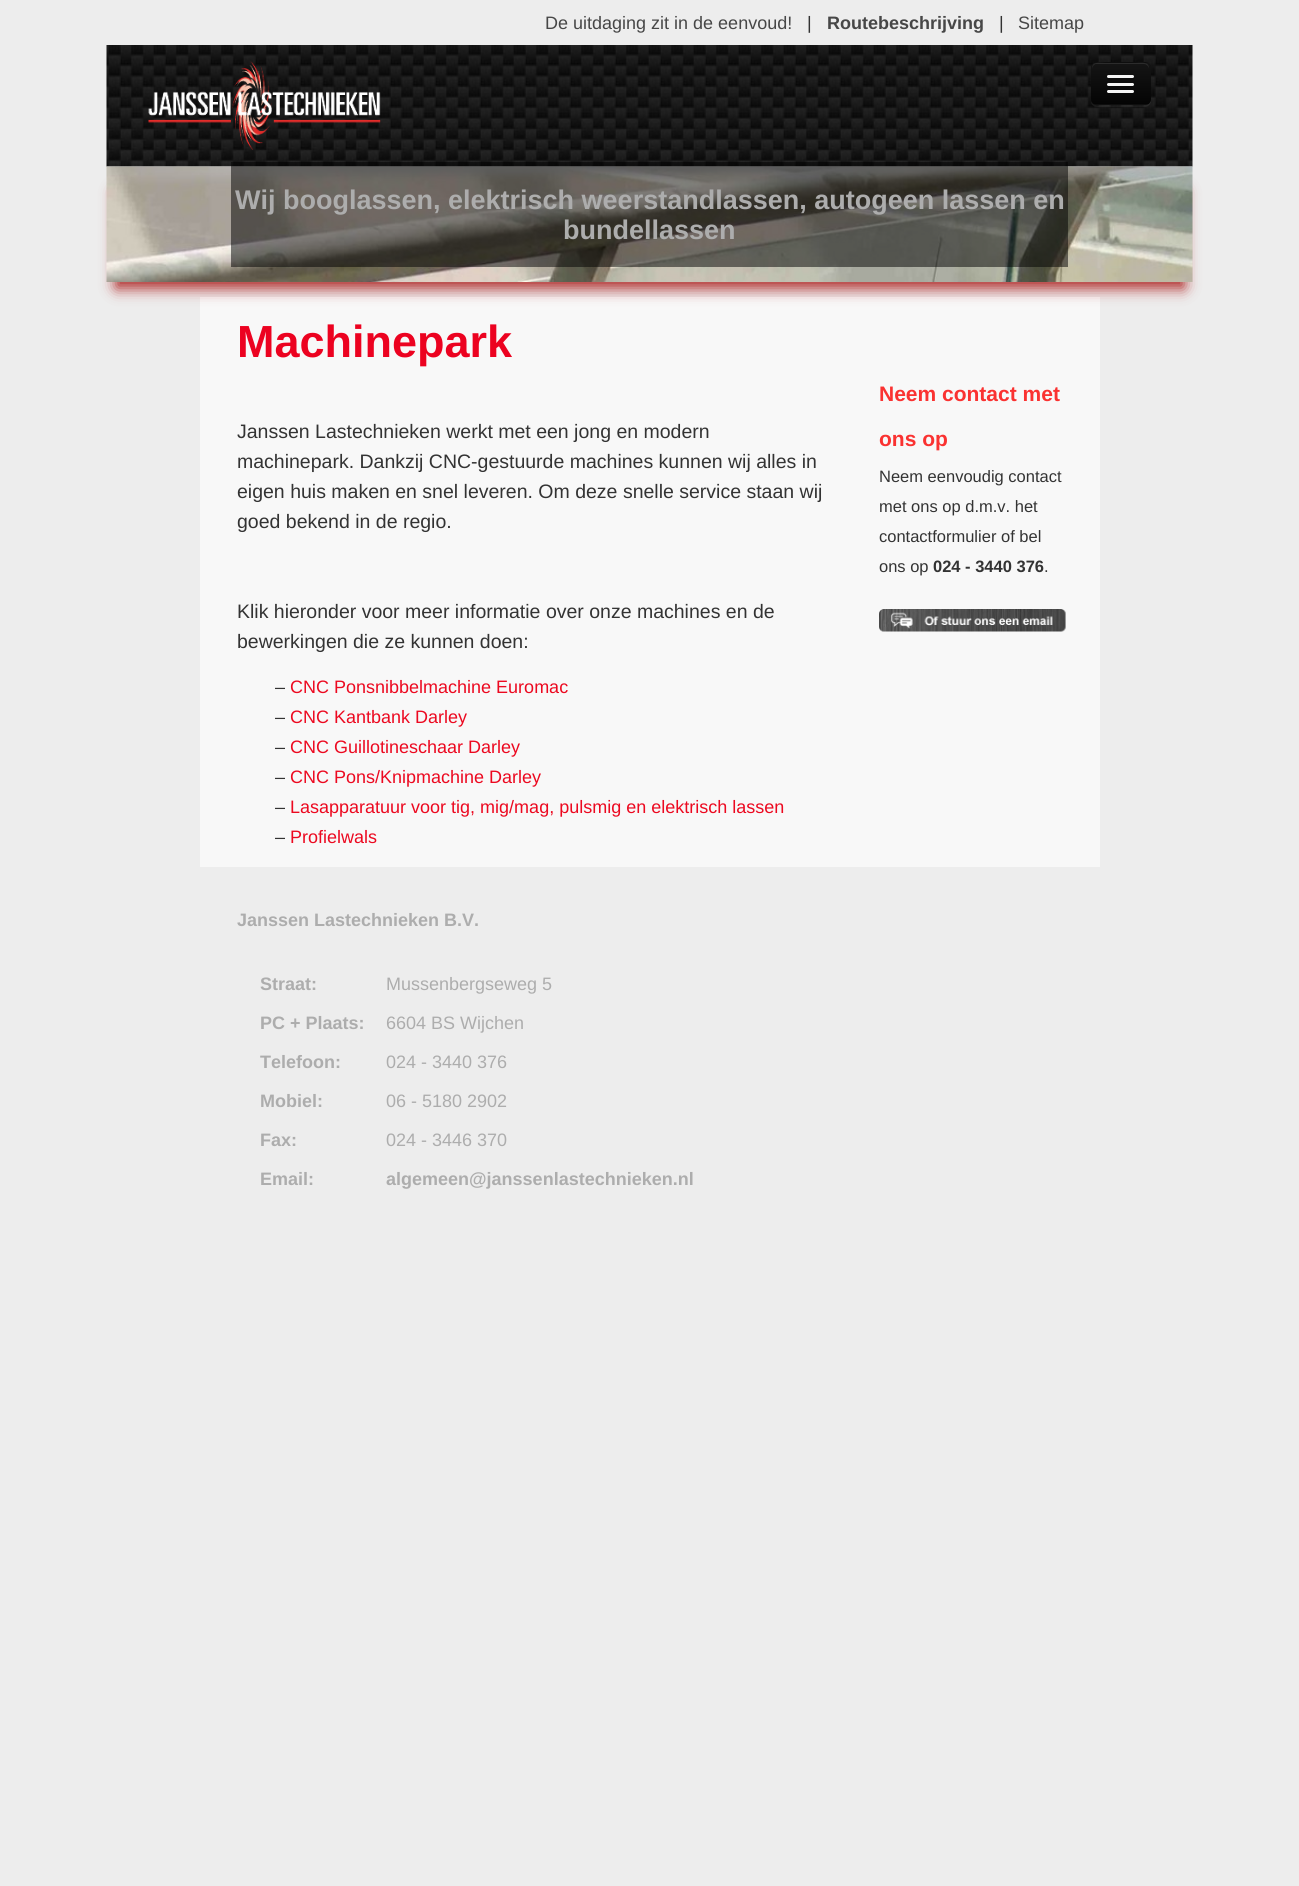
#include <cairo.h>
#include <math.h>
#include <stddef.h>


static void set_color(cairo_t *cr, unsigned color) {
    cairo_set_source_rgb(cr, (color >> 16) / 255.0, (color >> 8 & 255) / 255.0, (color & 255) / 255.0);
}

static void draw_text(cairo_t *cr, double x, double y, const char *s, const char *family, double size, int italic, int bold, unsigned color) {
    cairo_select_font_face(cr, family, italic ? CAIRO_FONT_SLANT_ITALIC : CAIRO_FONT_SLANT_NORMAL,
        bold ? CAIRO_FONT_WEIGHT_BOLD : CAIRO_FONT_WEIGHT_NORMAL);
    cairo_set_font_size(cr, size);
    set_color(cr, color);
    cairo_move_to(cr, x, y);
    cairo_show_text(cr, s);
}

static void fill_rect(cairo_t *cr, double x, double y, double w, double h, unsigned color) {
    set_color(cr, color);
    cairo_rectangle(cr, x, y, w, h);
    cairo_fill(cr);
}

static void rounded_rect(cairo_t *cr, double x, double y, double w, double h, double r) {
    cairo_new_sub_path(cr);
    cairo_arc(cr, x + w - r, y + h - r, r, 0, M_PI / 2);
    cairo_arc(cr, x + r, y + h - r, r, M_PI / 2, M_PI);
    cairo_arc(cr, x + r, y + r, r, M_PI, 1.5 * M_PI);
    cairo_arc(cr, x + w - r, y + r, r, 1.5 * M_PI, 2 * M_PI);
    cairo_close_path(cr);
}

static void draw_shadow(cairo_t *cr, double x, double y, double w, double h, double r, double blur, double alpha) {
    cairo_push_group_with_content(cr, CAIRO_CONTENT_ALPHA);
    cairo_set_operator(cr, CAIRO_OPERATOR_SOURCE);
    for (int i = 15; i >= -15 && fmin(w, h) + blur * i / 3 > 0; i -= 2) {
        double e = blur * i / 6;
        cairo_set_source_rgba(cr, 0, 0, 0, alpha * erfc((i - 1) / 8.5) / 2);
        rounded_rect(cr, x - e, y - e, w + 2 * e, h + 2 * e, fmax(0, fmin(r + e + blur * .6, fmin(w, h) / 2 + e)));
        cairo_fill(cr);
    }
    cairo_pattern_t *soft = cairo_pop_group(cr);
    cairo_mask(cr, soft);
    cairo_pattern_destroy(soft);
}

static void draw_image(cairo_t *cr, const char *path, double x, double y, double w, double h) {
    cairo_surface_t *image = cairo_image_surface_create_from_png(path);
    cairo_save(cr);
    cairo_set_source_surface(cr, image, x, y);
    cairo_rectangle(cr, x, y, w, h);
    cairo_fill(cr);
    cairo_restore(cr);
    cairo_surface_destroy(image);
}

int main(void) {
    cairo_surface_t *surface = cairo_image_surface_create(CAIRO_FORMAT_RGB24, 1299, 1886);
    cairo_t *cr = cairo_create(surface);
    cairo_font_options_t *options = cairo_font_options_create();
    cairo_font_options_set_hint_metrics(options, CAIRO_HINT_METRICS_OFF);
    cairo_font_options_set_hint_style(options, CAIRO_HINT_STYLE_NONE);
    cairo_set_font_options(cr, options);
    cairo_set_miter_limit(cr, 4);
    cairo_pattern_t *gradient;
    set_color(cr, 0xEDEDED);
    cairo_paint(cr);
    draw_text(cr, 545, 29, "De uitdaging zit in de eenvoud!", "Liberation Sans", 18, 0, 0, 0x474747);
    draw_text(cr, 807, 29, "|", "Liberation Sans", 18, 0, 0, 0x333333);
    draw_text(cr, 827, 29, "Routebeschrijving", "Liberation Sans", 18, 0, 1, 0x474747);
    draw_text(cr, 999, 29, "|", "Liberation Sans", 18, 0, 0, 0x333333);
    draw_text(cr, 1018, 29, "Sitemap", "Liberation Sans", 18, 0, 0, 0x474747);
    draw_image(cr, "assets/img1.png", 106, 45, 1087, 122);
    draw_image(cr, "assets/img2.png", 148, 61, 233, 89);
    cairo_set_source_rgba(cr, 1, 1, 1, 0.07);
    cairo_new_path(cr);
    cairo_move_to(cr, 1091, 101);
    cairo_curve_to(cr, 1091, 105, 1094, 107, 1097, 107);
    cairo_line_to(cr, 1145, 107);
    cairo_curve_to(cr, 1148, 107, 1151, 104, 1151, 101);
    cairo_line_to(cr, 1151, 69);
    cairo_line_to(cr, 1150, 66);
    cairo_line_to(cr, 1150, 100);
    cairo_line_to(cr, 1149, 102);
    cairo_curve_to(cr, 1149, 104, 1147, 105, 1146, 105);
    cairo_line_to(cr, 1104, 105);
    cairo_curve_to(cr, 1100, 105, 1093, 107, 1091, 101);
    cairo_close_path(cr);
    cairo_fill(cr);
    set_color(cr, 0x0E0E0E);
    rounded_rect(cr, 1091, 62, 60, 43, 6);
    cairo_fill(cr);
    cairo_save(cr);
    rounded_rect(cr, 1091, 62, 60, 43, 6);
    cairo_clip(cr);
    gradient = cairo_pattern_create_linear(1121, 63, 1121, 104);
    cairo_pattern_add_color_stop_rgba(gradient, 0, 0.082, 0.082, 0.082, 1);
    cairo_pattern_add_color_stop_rgba(gradient, 1, 0.016, 0.016, 0.016, 1);
    cairo_set_source(cr, gradient);
    cairo_pattern_destroy(gradient);
    cairo_rectangle(cr, 1091, 63, 60, 41);
    cairo_fill(cr);
    cairo_restore(cr);
    set_color(cr, 0x2C2C2C);
    cairo_new_path(cr);
    cairo_move_to(cr, 1096, 64);
    cairo_line_to(cr, 1144, 64);
    cairo_curve_to(cr, 1147, 64, 1149, 67, 1149, 69);
    cairo_curve_to(cr, 1149, 61, 1142, 63, 1136, 63);
    cairo_line_to(cr, 1105, 63);
    cairo_curve_to(cr, 1099, 63, 1092, 61, 1092, 69);
    cairo_curve_to(cr, 1092, 67, 1094, 64, 1096, 64);
    cairo_close_path(cr);
    cairo_fill(cr);
    set_color(cr, 0x0B0B0B);
    cairo_new_path(cr);
    cairo_move_to(cr, 1107.5, 77.5);
    cairo_line_to(cr, 1107, 79);
    cairo_curve_to(cr, 1107.5, 81, 1112, 80, 1112.5, 80);
    cairo_line_to(cr, 1128.5, 80);
    cairo_curve_to(cr, 1129, 80, 1133.5, 81, 1134, 79);
    cairo_line_to(cr, 1133.5, 77.5);
    cairo_line_to(cr, 1132.5, 78);
    cairo_line_to(cr, 1108.5, 78);
    cairo_close_path(cr);
    cairo_fill(cr);
    set_color(cr, 0xF5F5F5);
    rounded_rect(cr, 1107, 75, 27, 3, 1.5);
    cairo_fill(cr);
    set_color(cr, 0x080808);
    cairo_new_path(cr);
    cairo_move_to(cr, 1107, 84.5);
    cairo_curve_to(cr, 1105.5, 88, 1112.5, 87, 1112.5, 87);
    cairo_line_to(cr, 1128.5, 87);
    cairo_curve_to(cr, 1128.5, 87, 1135.5, 88, 1134, 84.5);
    cairo_curve_to(cr, 1133.5, 85, 1133, 85.5, 1132.5, 85.5);
    cairo_line_to(cr, 1108.5, 85.5);
    cairo_curve_to(cr, 1108, 85.5, 1107.5, 85, 1107, 84.5);
    cairo_close_path(cr);
    cairo_fill(cr);
    set_color(cr, 0xF5F5F5);
    rounded_rect(cr, 1107, 83, 27, 3, 1.5);
    cairo_fill(cr);
    rounded_rect(cr, 1107, 90, 27, 3, 1.5);
    cairo_fill(cr);
    fill_rect(cr, 200, 297, 900, 570, 0xF8F8F8);
    set_color(cr, 0xAD2322);
    draw_shadow(cr, 116, 191, 1068, 97, 0, 7.5, 1);
    draw_image(cr, "assets/img3.png", 106, 166, 1087, 116);
    cairo_set_source_rgba(cr, 0, 0, 0, 0.5);
    cairo_rectangle(cr, 231, 162, 837, 105);
    cairo_fill(cr);
    draw_text(cr, 235, 209, "Wij booglassen, elektrisch weerstandlassen, autogeen lassen en", "Liberation Sans", 27, 0, 1, 0xADADAD);
    draw_text(cr, 563, 239, "bundellassen", "Liberation Sans", 27, 0, 1, 0xADADAD);
    draw_text(cr, 237, 357, "Machinepark", "Liberation Sans", 45, 0, 1, 0xEC0220);
    draw_text(cr, 237, 438, "Janssen Lastechnieken werkt met een jong en modern", "Liberation Sans", 19.5, 0, 0, 0x333333);
    draw_text(cr, 237, 468, "machinepark. Dankzij CNC-gestuurde machines kunnen wij alles in", "Liberation Sans", 19.5, 0, 0, 0x333333);
    draw_text(cr, 237, 498, "eigen huis maken en snel leveren. Om deze snelle service staan wij", "Liberation Sans", 19.5, 0, 0, 0x333333);
    draw_text(cr, 237, 528, "goed bekend in de regio.", "Liberation Sans", 19.5, 0, 0, 0x333333);
    draw_text(cr, 237, 618, "Klik hieronder voor meer informatie over onze machines en de", "Liberation Sans", 19.5, 0, 0, 0x333333);
    draw_text(cr, 237, 648, "bewerkingen die ze kunnen doen:", "Liberation Sans", 19.5, 0, 0, 0x333333);
    draw_text(cr, 275, 693, "–", "Liberation Sans", 18, 0, 0, 0x333333);
    draw_text(cr, 290, 693, "CNC Ponsnibbelmachine Euromac", "Liberation Sans", 18, 0, 0, 0xEC0920);
    draw_text(cr, 275, 723, "–", "Liberation Sans", 18, 0, 0, 0x333333);
    draw_text(cr, 290, 723, "CNC Kantbank Darley", "Liberation Sans", 18, 0, 0, 0xEC0920);
    draw_text(cr, 275, 753, "–", "Liberation Sans", 18, 0, 0, 0x333333);
    draw_text(cr, 290, 753, "CNC Guillotineschaar Darley", "Liberation Sans", 18, 0, 0, 0xEC0920);
    draw_text(cr, 275, 783, "–", "Liberation Sans", 18, 0, 0, 0x333333);
    draw_text(cr, 290, 783, "CNC Pons/Knipmachine Darley", "Liberation Sans", 18, 0, 0, 0xEC0920);
    draw_text(cr, 275, 813, "–", "Liberation Sans", 18, 0, 0, 0x333333);
    draw_text(cr, 290, 813, "Lasapparatuur voor tig, mig/mag, pulsmig en elektrisch lassen", "Liberation Sans", 18, 0, 0, 0xEC0920);
    draw_text(cr, 275, 843, "–", "Liberation Sans", 18, 0, 0, 0x333333);
    draw_text(cr, 290, 843, "Profielwals", "Liberation Sans", 18, 0, 0, 0xEC0920);
    draw_text(cr, 879, 401, "Neem contact met", "Liberation Sans", 21, 0, 1, 0xFA3231);
    draw_text(cr, 879, 446, "ons op", "Liberation Sans", 21, 0, 1, 0xFA3231);
    draw_text(cr, 879, 482, "Neem eenvoudig contact", "Liberation Sans", 16.5, 0, 0, 0x333333);
    draw_text(cr, 879, 512, "met ons op d.m.v. het", "Liberation Sans", 16.5, 0, 0, 0x333333);
    draw_text(cr, 879, 542, "contactformulier of bel", "Liberation Sans", 16.5, 0, 0, 0x333333);
    draw_text(cr, 879, 572, "ons op", "Liberation Sans", 16.5, 0, 0, 0x333333);
    draw_text(cr, 933, 572, "024 - 3440 376", "Liberation Sans", 16.5, 0, 1, 0x333333);
    draw_text(cr, 1044, 572, ".", "Liberation Sans", 16.5, 0, 0, 0x333333);
    draw_image(cr, "assets/img4.png", 879, 609, 187, 23);
    draw_text(cr, 237, 926, "Janssen Lastechnieken B.V.", "Liberation Sans", 18, 0, 1, 0xADADAD);
    draw_text(cr, 260, 990, "Straat:", "Liberation Sans", 18, 0, 1, 0xADADAD);
    draw_text(cr, 386, 990, "Mussenbergseweg 5", "Liberation Sans", 18, 0, 0, 0xADADAD);
    draw_text(cr, 260, 1029, "PC + Plaats:", "Liberation Sans", 18, 0, 1, 0xADADAD);
    draw_text(cr, 386, 1029, "6604 BS Wijchen", "Liberation Sans", 18, 0, 0, 0xADADAD);
    draw_text(cr, 260, 1068, "Telefoon:", "Liberation Sans", 18, 0, 1, 0xADADAD);
    draw_text(cr, 386, 1068, "024 - 3440 376", "Liberation Sans", 18, 0, 0, 0xADADAD);
    draw_text(cr, 260, 1107, "Mobiel:", "Liberation Sans", 18, 0, 1, 0xADADAD);
    draw_text(cr, 386, 1107, "06 - 5180 2902", "Liberation Sans", 18, 0, 0, 0xADADAD);
    draw_text(cr, 260, 1146, "Fax:", "Liberation Sans", 18, 0, 1, 0xADADAD);
    draw_text(cr, 386, 1146, "024 - 3446 370", "Liberation Sans", 18, 0, 0, 0xADADAD);
    draw_text(cr, 260, 1185, "Email:", "Liberation Sans", 18, 0, 1, 0xADADAD);
    draw_text(cr, 386, 1185, "algemeen@janssenlastechnieken.nl", "Liberation Sans", 18, 0, 1, 0xADADAD);
    cairo_surface_write_to_png(surface, "output.png");
    cairo_font_options_destroy(options);
    cairo_destroy(cr);
    cairo_surface_destroy(surface);
    return 0;
}
